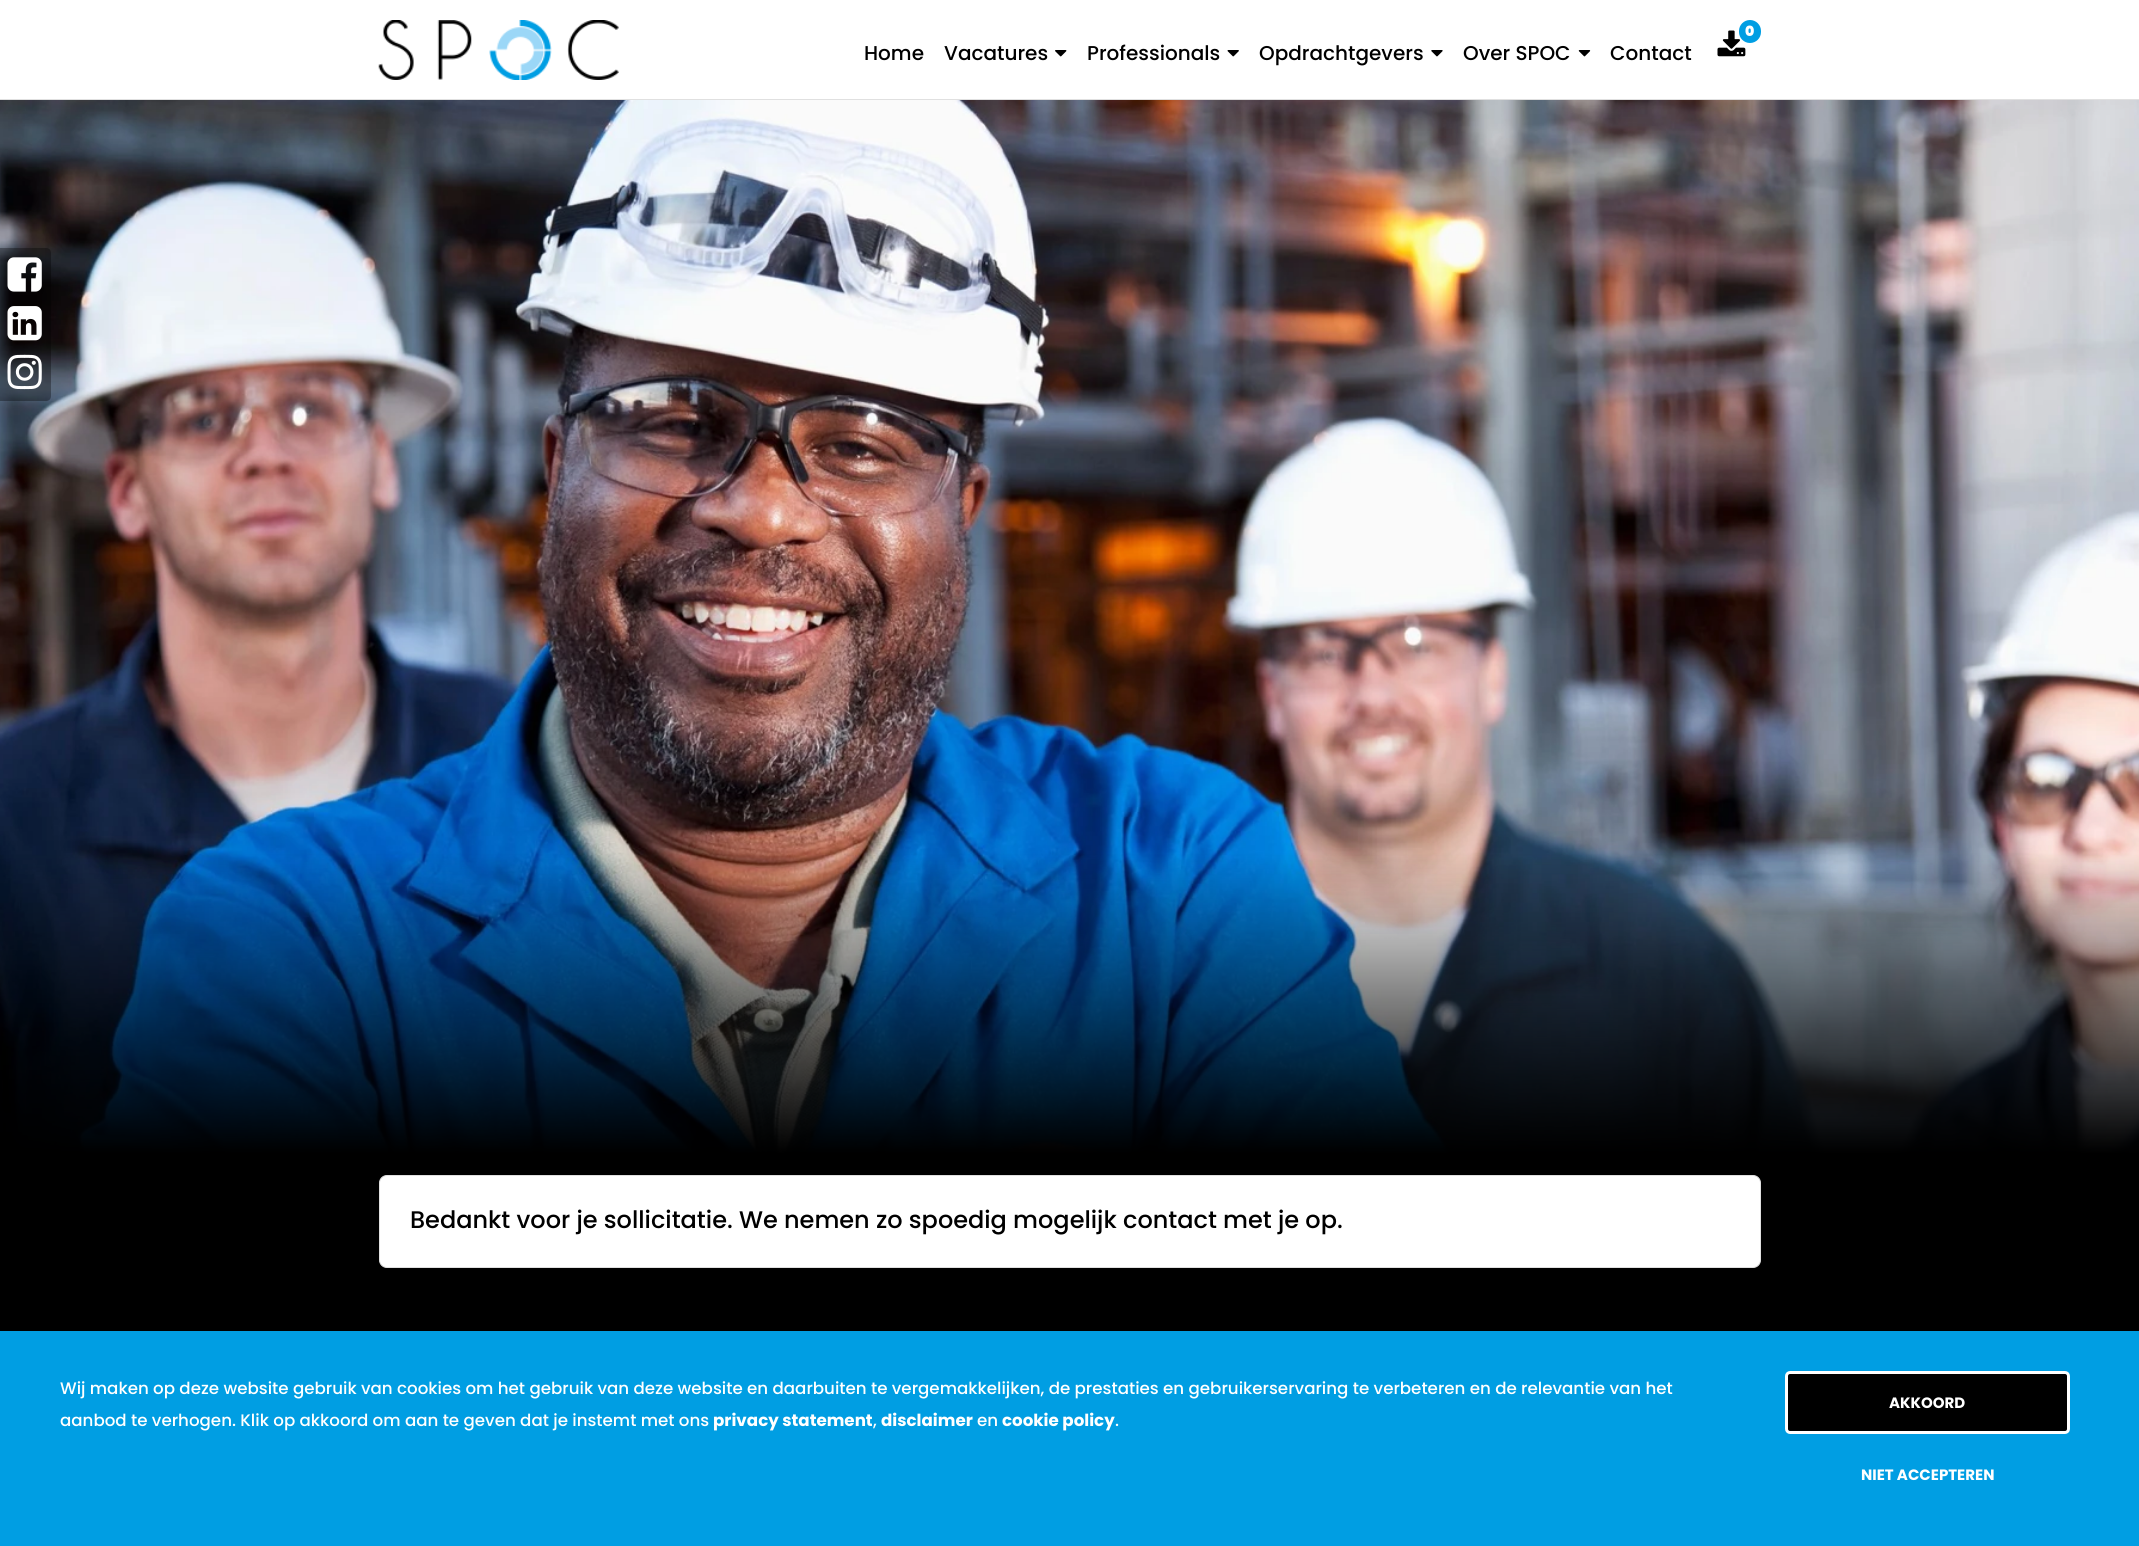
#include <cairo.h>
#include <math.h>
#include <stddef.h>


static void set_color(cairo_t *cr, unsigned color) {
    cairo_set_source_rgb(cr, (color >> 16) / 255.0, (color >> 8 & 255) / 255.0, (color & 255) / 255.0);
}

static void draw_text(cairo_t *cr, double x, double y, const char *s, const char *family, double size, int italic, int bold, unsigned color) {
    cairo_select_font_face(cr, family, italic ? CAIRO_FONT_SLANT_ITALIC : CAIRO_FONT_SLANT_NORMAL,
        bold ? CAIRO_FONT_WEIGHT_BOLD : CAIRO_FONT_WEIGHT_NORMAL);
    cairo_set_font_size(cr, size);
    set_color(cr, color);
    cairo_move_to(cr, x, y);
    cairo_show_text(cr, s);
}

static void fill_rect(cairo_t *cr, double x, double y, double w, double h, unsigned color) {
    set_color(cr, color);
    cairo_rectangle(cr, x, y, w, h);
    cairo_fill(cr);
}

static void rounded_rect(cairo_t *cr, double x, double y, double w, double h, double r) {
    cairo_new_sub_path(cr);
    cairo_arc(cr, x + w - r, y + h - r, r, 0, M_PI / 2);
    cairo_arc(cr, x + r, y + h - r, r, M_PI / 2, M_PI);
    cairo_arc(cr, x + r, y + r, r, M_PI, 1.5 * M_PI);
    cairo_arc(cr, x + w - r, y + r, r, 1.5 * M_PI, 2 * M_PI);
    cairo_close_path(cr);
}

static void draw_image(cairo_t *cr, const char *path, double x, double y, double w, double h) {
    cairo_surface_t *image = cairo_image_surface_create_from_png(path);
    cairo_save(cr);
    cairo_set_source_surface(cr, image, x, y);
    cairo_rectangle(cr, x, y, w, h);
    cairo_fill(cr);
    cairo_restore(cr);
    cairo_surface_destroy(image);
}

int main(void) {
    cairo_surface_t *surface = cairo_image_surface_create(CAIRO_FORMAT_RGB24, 2139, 1546);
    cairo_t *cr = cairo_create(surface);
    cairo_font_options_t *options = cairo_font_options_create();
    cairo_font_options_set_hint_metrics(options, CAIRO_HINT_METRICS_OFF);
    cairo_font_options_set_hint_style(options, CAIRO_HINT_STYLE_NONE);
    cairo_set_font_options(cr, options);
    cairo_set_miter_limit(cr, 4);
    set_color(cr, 0x000000);
    cairo_paint(cr);
    draw_image(cr, "assets/img10.png", 0, 100, 2139, 1075);
    cairo_set_source_rgba(cr, 0, 0, 0, 0.33);
    cairo_new_path(cr);
    cairo_move_to(cr, 0, 248);
    cairo_line_to(cr, 46, 248);
    cairo_curve_to(cr, 49, 248, 51, 250, 51, 253);
    cairo_line_to(cr, 51, 396);
    cairo_curve_to(cr, 51, 399, 49, 401, 46, 401);
    cairo_line_to(cr, 0, 401);
    cairo_close_path(cr);
    cairo_fill(cr);
    draw_image(cr, "assets/img1.png", 7, 257, 35, 35);
    draw_image(cr, "assets/img2.png", 7, 306, 35, 35);
    draw_image(cr, "assets/img3.png", 7, 354, 35, 36);
    fill_rect(cr, 0, 0, 2139, 99, 0xFFFFFF);
    fill_rect(cr, 0, 99, 2139, 1, 0xE0E0E0);
    draw_image(cr, "assets/img4.png", 378, 20, 241, 60);
    draw_image(cr, "assets/img5.png", 1717, 30, 29, 27);
    set_color(cr, 0x009EE3);
    rounded_rect(cr, 1739, 20, 22, 23, 11);
    cairo_fill(cr);
    draw_text(cr, 1745, 36, "0", "Poppins Black", 14, 0, 0, 0xFFFFFF);
    draw_text(cr, 864, 60, "Home", "Poppins Medium", 20, 0, 0, 0x000000);
    draw_text(cr, 944, 60, "Vacatures", "Poppins Medium", 20, 0, 0, 0x000000);
    draw_image(cr, "assets/img6.png", 1055, 50, 12, 7);
    draw_text(cr, 1087, 60, "Professionals", "Poppins Medium", 20, 0, 0, 0x000000);
    draw_image(cr, "assets/img7.png", 1227, 50, 12, 7);
    draw_text(cr, 1259, 60, "Opdrachtgevers", "Poppins Medium", 20, 0, 0, 0x000000);
    draw_image(cr, "assets/img8.png", 1431, 50, 12, 7);
    draw_text(cr, 1463, 60, "Over SPOC", "Poppins Medium", 20, 0, 0, 0x000000);
    draw_image(cr, "assets/img9.png", 1578, 50, 13, 7);
    draw_text(cr, 1610, 60, "Contact", "Poppins Medium", 20, 0, 0, 0x000000);
    set_color(cr, 0xFFFFFF);
    rounded_rect(cr, 379.5, 1175.5, 1381, 92, 7.5);
    cairo_fill_preserve(cr);
    set_color(cr, 0xE0E0E0);
    cairo_set_line_width(cr, 1);
    cairo_stroke(cr);
    draw_text(cr, 410, 1228, "Bedankt voor je sollicitatie. We nemen zo spoedig mogelijk contact met je op.", "Poppins Medium", 24, 0, 0, 0x000000);
    fill_rect(cr, 0, 1331, 2139, 215, 0x009EE3);
    draw_text(cr, 60, 1394, "Wij maken op deze website gebruik van cookies om het gebruik van deze website en daarbuiten te vergemakkelijken, de prestaties en gebruikerservaring te verbeteren en de relevantie van het", "Poppins Medium", 16.67, 0, 0, 0xFFFFFF);
    draw_text(cr, 60, 1426, "aanbod te verhogen. Klik op akkoord om aan te geven dat je instemt met ons", "Poppins Medium", 16.67, 0, 0, 0xFFFFFF);
    draw_text(cr, 713, 1426, "privacy statement", "Poppins", 16.67, 0, 1, 0xFFFFFF);
    draw_text(cr, 873, 1426, ",", "Poppins Medium", 16.67, 0, 0, 0xFFFFFF);
    draw_text(cr, 881, 1426, "disclaimer", "Poppins", 16.67, 0, 1, 0xFFFFFF);
    draw_text(cr, 977, 1426, "en", "Poppins Medium", 16.67, 0, 0, 0xFFFFFF);
    draw_text(cr, 1002, 1426, "cookie policy", "Poppins", 16.67, 0, 1, 0xFFFFFF);
    draw_text(cr, 1115, 1426, ".", "Poppins Medium", 16.67, 0, 0, 0xFFFFFF);
    set_color(cr, 0x000000);
    rounded_rect(cr, 1786.5, 1372.5, 282, 60, 3.5);
    cairo_fill_preserve(cr);
    set_color(cr, 0xFFFFFF);
    cairo_set_line_width(cr, 3);
    cairo_stroke(cr);
    draw_text(cr, 1889, 1408, "AKKOORD", "Poppins", 15, 0, 1, 0xFFFFFF);
    draw_text(cr, 1861, 1480, "NIET ACCEPTEREN", "Poppins", 15, 0, 1, 0xFFFFFF);
    cairo_surface_write_to_png(surface, "output.png");
    cairo_font_options_destroy(options);
    cairo_destroy(cr);
    cairo_surface_destroy(surface);
    return 0;
}
